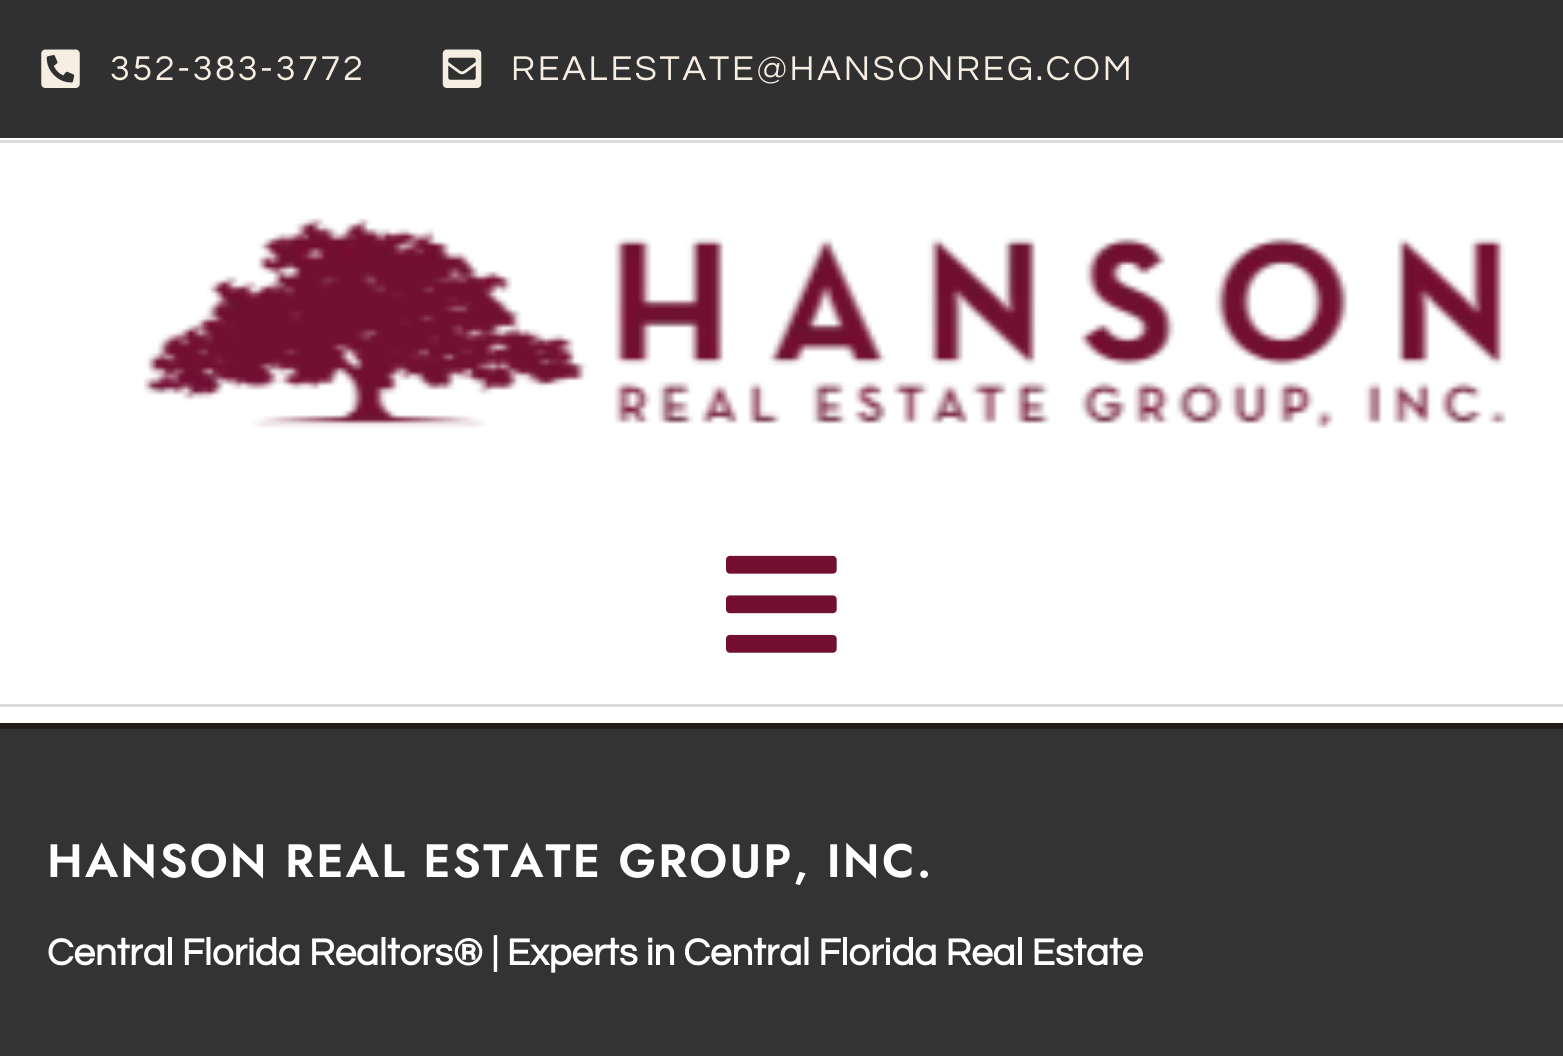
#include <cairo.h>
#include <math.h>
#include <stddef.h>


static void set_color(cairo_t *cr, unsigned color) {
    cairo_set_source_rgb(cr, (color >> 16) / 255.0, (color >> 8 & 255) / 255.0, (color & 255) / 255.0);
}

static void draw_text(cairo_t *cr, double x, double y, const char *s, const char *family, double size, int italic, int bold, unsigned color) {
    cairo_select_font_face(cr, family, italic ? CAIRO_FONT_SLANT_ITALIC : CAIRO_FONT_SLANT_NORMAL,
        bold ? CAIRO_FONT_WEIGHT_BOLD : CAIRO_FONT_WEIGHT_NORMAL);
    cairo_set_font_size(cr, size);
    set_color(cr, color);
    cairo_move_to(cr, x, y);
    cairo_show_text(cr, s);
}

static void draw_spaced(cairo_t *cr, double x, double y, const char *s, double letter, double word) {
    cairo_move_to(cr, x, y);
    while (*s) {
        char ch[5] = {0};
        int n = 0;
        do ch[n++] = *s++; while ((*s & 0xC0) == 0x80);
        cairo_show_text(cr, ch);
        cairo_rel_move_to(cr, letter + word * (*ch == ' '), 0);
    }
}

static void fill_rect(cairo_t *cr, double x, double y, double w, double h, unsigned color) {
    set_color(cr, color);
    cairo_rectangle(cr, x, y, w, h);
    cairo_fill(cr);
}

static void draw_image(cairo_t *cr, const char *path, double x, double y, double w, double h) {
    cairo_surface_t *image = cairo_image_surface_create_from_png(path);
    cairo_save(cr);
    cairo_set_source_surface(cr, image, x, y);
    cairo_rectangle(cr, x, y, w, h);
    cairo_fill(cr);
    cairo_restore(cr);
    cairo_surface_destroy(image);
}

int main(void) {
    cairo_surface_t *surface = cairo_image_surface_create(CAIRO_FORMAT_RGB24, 1563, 1056);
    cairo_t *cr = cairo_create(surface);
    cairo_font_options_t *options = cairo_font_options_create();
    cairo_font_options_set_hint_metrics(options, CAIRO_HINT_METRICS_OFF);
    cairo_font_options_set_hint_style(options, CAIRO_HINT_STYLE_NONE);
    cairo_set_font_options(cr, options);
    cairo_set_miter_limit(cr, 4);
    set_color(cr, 0xFFFFFF);
    cairo_paint(cr);
    fill_rect(cr, 0, 0, 1563, 138, 0x303030);
    draw_image(cr, "assets/img1.png", 41, 49, 39, 39);
    cairo_select_font_face(cr, "Questrial", CAIRO_FONT_SLANT_NORMAL, CAIRO_FONT_WEIGHT_NORMAL);
    cairo_set_font_size(cr, 35.75);
    set_color(cr, 0xF7EEE3);
    draw_spaced(cr, 110, 80, "352-383-3772", 2.75, 0);
    draw_image(cr, "assets/img2.png", 442, 49, 40, 39);
    draw_spaced(cr, 511, 80, "REALESTATE@HANSONREG.COM", 2.75, 0);
    fill_rect(cr, 0, 140, 1563, 3, 0xDBDBDB);
    fill_rect(cr, 0, 704, 1563, 3, 0xDBDBDB);
    draw_image(cr, "assets/img3.png", 143, 217, 1363, 212);
    draw_image(cr, "assets/img4.png", 726, 555, 111, 98);
    fill_rect(cr, 0, 729, 1563, 327, 0x333333);
    fill_rect(cr, 0, 723, 1563, 6, 0x221B19);
    cairo_select_font_face(cr, "Jost SemiBold", CAIRO_FONT_SLANT_NORMAL, CAIRO_FONT_WEIGHT_NORMAL);
    cairo_set_font_size(cr, 46.75);
    set_color(cr, 0xFFFFFF);
    draw_spaced(cr, 47, 877, "HANSON REAL ESTATE GROUP, INC.", 2.2, 0);
    draw_text(cr, 47, 965, "Central Florida Realtors® | Experts in Central Florida Real Estate", "Questrial", 38.5, 0, 1, 0xFFFFFF);
    cairo_surface_write_to_png(surface, "output.png");
    cairo_font_options_destroy(options);
    cairo_destroy(cr);
    cairo_surface_destroy(surface);
    return 0;
}
